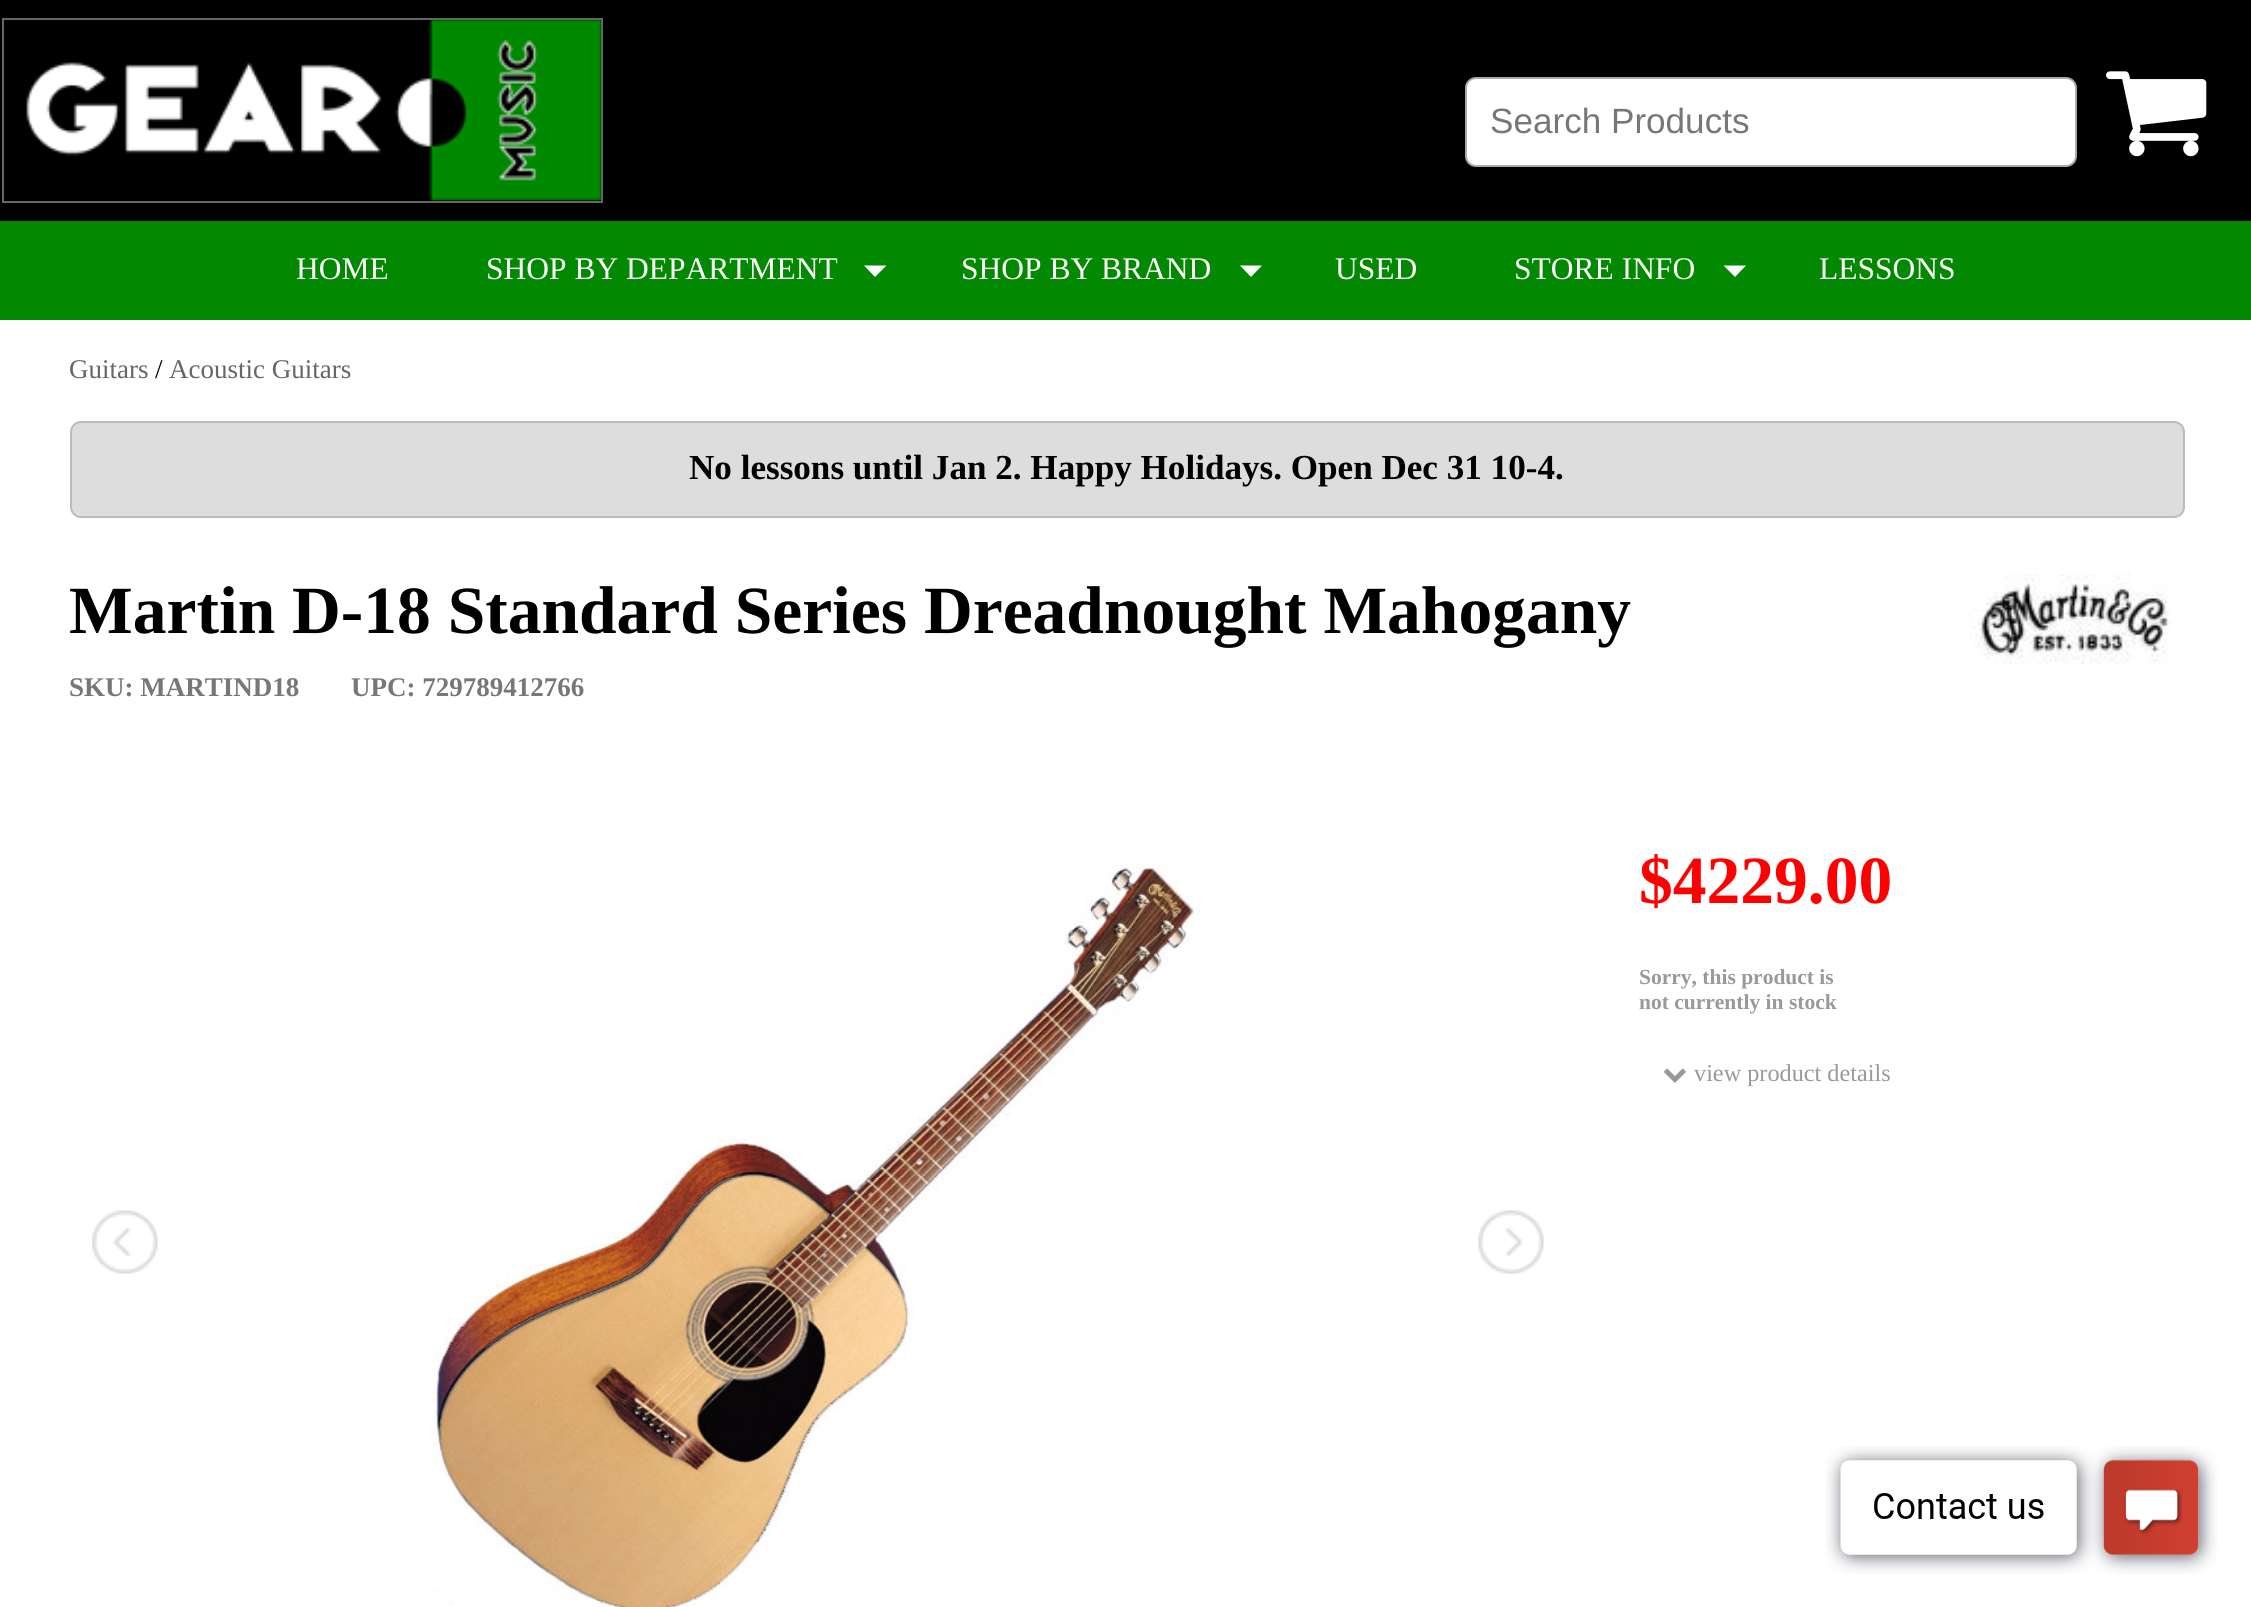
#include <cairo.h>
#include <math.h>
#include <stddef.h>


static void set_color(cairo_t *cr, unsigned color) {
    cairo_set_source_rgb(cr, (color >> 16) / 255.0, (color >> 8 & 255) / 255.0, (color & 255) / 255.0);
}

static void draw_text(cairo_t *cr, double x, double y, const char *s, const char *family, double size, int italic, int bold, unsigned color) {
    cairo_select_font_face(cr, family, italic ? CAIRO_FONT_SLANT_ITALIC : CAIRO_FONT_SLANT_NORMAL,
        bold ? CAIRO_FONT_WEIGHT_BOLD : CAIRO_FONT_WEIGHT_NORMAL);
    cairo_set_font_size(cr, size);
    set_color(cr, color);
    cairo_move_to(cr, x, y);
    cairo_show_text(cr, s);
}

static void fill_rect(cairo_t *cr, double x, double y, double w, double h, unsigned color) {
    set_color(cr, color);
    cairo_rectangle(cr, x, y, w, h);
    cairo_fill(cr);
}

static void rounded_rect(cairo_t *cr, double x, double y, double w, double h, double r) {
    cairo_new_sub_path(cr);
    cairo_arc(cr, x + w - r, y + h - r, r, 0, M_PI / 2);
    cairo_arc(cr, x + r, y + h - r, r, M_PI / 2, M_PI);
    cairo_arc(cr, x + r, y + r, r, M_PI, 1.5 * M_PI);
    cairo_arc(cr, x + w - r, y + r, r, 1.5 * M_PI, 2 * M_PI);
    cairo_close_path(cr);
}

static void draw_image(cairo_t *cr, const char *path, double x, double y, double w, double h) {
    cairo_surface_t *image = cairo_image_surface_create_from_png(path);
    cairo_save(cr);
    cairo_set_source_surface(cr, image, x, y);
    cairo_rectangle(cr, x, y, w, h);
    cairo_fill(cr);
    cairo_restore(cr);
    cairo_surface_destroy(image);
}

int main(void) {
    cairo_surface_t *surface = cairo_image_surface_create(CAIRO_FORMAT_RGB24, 2251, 1607);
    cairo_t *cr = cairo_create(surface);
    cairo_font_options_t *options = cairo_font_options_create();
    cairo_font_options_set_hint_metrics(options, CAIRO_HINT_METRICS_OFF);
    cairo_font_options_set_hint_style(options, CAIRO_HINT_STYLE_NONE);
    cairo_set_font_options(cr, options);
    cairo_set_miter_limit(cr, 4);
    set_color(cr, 0x000000);
    cairo_paint(cr);
    cairo_rectangle(cr, 3, 19, 599, 183);
    set_color(cr, 0x676666);
    cairo_stroke(cr);
    draw_image(cr, "assets/img1.png", 26, 20, 575, 181);
    set_color(cr, 0xFFFFFF);
    rounded_rect(cr, 1466, 78, 610, 88, 10);
    cairo_fill_preserve(cr);
    set_color(cr, 0xAAAAAA);
    cairo_stroke(cr);
    draw_text(cr, 1490, 133, "Search Products", "Liberation Sans", 35.1, 0, 0, 0x777777);
    draw_image(cr, "assets/img2.png", 2106, 71, 101, 86);
    fill_rect(cr, 0, 221, 2251, 99, 0x038801);
    draw_text(cr, 296, 279, "HOME", "Liberation Serif", 31.5, 0, 0, 0xFFFFFF);
    draw_text(cr, 486, 279, "SHOP BY DEPARTMENT", "Liberation Serif", 31.5, 0, 0, 0xFFFFFF);
    cairo_new_path(cr);
    cairo_move_to(cr, 864, 265.5);
    cairo_line_to(cr, 886.5, 265.5);
    cairo_line_to(cr, 875, 277);
    cairo_close_path(cr);
    cairo_fill(cr);
    draw_text(cr, 961, 279, "SHOP BY BRAND", "Liberation Serif", 31.5, 0, 0, 0xFFFFFF);
    cairo_new_path(cr);
    cairo_move_to(cr, 1240, 265.5);
    cairo_line_to(cr, 1262, 265.5);
    cairo_line_to(cr, 1251, 277);
    cairo_close_path(cr);
    cairo_fill(cr);
    draw_text(cr, 1335, 279, "USED", "Liberation Serif", 31.5, 0, 0, 0xFFFFFF);
    draw_text(cr, 1514, 279, "STORE INFO", "Liberation Serif", 31.5, 0, 0, 0xFFFFFF);
    cairo_new_path(cr);
    cairo_move_to(cr, 1723.5, 265.5);
    cairo_line_to(cr, 1746, 265.5);
    cairo_line_to(cr, 1735, 277);
    cairo_close_path(cr);
    cairo_fill(cr);
    draw_text(cr, 1819, 279, "LESSONS", "Liberation Serif", 31.5, 0, 0, 0xFFFFFF);
    fill_rect(cr, 0, 320, 2251, 1287, 0xFFFFFF);
    draw_text(cr, 69, 378, "Guitars", "Liberation Serif", 27, 0, 0, 0x666666);
    draw_text(cr, 155, 378, "/", "Liberation Serif", 27, 0, 0, 0x000000);
    draw_text(cr, 169, 378, "Acoustic Guitars", "Liberation Serif", 27, 0, 0, 0x666666);
    set_color(cr, 0xDDDDDD);
    rounded_rect(cr, 71, 422, 2113, 95, 10);
    cairo_fill_preserve(cr);
    set_color(cr, 0xBBBBBB);
    cairo_stroke(cr);
    draw_text(cr, 689, 479, "No lessons until Jan 2. Happy Holidays. Open Dec 31 10-4.", "Liberation Serif", 35.1, 0, 1, 0x000000);
    draw_text(cr, 69, 633, "Martin D-18 Standard Series Dreadnought Mahogany", "Liberation Serif", 67.5, 0, 1, 0x000000);
    draw_image(cr, "assets/img3.png", 1969, 574, 202, 90);
    draw_text(cr, 69, 696, "SKU: MARTIND18", "Liberation Serif", 27, 0, 1, 0x777777);
    draw_text(cr, 351, 696, "UPC: 729789412766", "Liberation Serif", 27, 0, 1, 0x777777);
    draw_image(cr, "assets/img4.png", 433, 865, 767, 742);
    draw_image(cr, "assets/img5.png", 92, 1210, 66, 64);
    draw_image(cr, "assets/img6.png", 1477, 1210, 67, 64);
    draw_text(cr, 1639, 903, "$4229.00", "Liberation Serif", 67.5, 0, 1, 0xFF0000);
    draw_text(cr, 1639, 984, "Sorry, this product is", "Liberation Serif", 21.5, 0, 1, 0x999999);
    draw_text(cr, 1639, 1009, "not currently in stock", "Liberation Serif", 21.5, 0, 1, 0x999999);
    draw_image(cr, "assets/img7.png", 1664, 1068, 22, 15);
    draw_text(cr, 1694, 1081, "view product details", "Liberation Serif", 24.25, 0, 0, 0x999999);
    draw_image(cr, "assets/img8.png", 1826, 1446, 391, 128);
    cairo_surface_write_to_png(surface, "output.png");
    cairo_font_options_destroy(options);
    cairo_destroy(cr);
    cairo_surface_destroy(surface);
    return 0;
}
